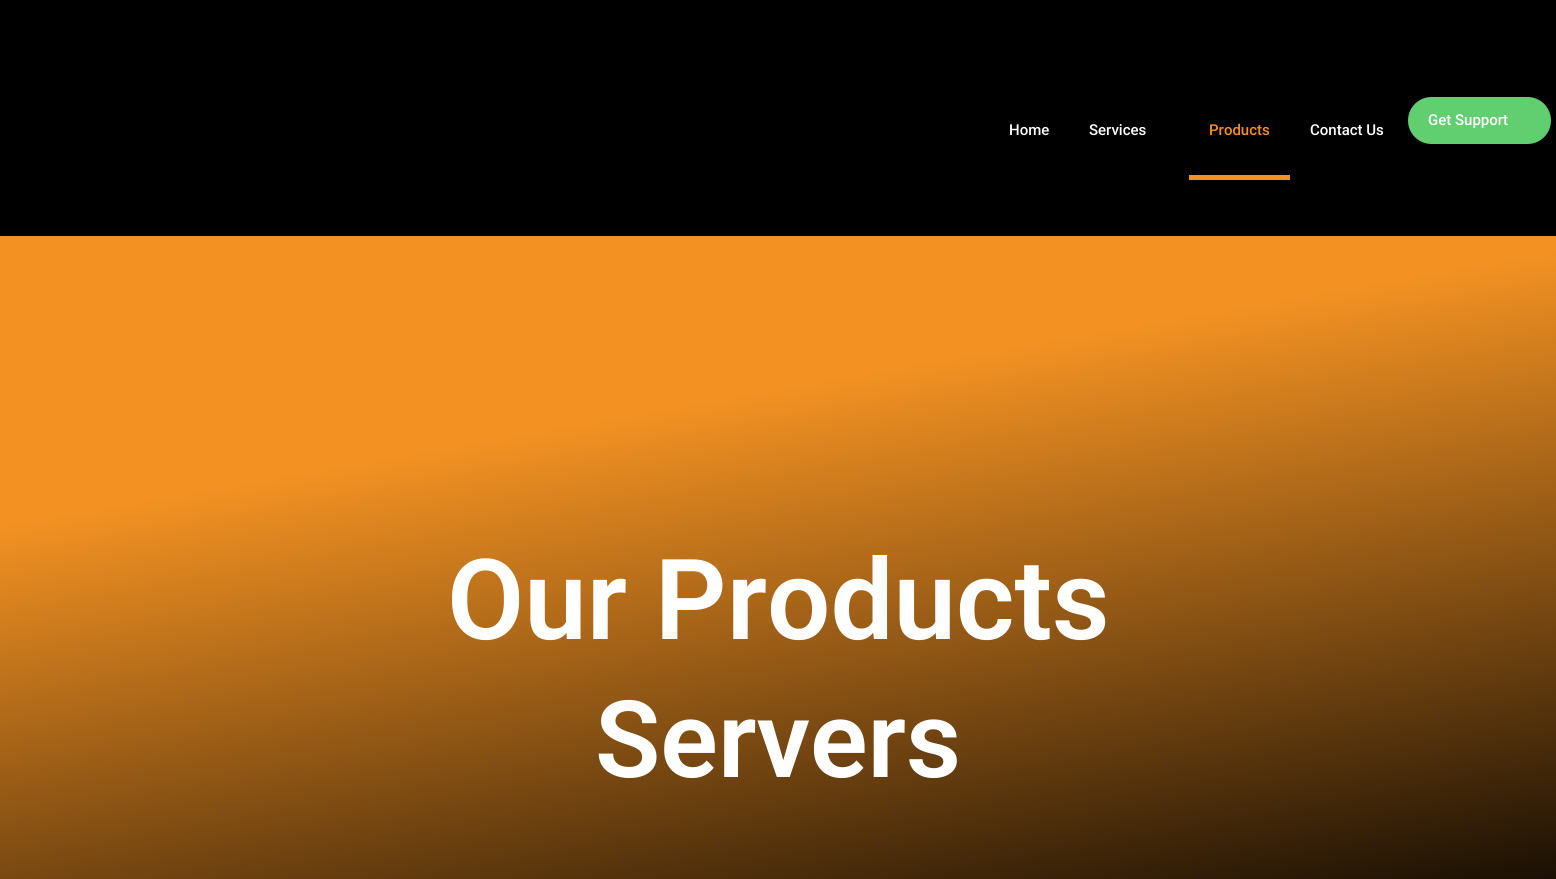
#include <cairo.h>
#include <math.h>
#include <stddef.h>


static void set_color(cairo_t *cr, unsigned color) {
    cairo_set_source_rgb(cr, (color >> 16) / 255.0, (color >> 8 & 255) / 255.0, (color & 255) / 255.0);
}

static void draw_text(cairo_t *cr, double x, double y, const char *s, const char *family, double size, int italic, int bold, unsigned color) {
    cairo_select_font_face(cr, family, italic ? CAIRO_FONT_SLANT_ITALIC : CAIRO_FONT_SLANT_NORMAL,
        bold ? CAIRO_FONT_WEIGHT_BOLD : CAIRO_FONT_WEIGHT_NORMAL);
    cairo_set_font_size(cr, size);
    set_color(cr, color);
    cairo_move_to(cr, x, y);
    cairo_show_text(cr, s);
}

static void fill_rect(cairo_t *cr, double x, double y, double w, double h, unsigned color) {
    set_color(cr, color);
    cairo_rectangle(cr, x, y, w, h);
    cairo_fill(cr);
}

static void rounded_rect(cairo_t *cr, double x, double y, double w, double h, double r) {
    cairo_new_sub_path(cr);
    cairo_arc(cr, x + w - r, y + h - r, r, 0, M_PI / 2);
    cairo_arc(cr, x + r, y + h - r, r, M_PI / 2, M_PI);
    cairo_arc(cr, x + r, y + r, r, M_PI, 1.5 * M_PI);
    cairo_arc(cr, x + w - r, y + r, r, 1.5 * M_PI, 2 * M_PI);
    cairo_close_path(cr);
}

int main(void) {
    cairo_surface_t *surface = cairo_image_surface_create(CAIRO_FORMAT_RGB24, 1556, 879);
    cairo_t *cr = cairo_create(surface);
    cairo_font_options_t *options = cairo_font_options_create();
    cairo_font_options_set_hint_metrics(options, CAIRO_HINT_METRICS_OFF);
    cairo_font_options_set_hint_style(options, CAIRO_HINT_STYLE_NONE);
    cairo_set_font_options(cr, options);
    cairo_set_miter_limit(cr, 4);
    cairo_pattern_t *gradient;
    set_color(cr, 0x000000);
    cairo_paint(cr);
    draw_text(cr, 1009, 135, "Home", "Roboto Medium", 15, 0, 0, 0xFFFFFF);
    draw_text(cr, 1089, 135, "Services", "Roboto Medium", 15, 0, 0, 0xFFFFFF);
    draw_text(cr, 1209, 135, "Products", "Roboto Medium", 15, 0, 0, 0xF39223);
    fill_rect(cr, 1189, 175, 101, 5, 0xF39223);
    draw_text(cr, 1310, 135, "Contact Us", "Roboto Medium", 15, 0, 0, 0xFFFFFF);
    set_color(cr, 0x61CE70);
    rounded_rect(cr, 1408, 97, 143, 47, 23.5);
    cairo_fill(cr);
    draw_text(cr, 1428, 125, "Get Support", "Roboto Medium", 15, 0, 0, 0xFFFFFF);
    gradient = cairo_pattern_create_linear(679, 116, 877, 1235);
    cairo_pattern_add_color_stop_rgba(gradient, 0.25, 0.953, 0.573, 0.137, 1);
    cairo_pattern_add_color_stop_rgba(gradient, 0.86, 0, 0, 0, 1);
    cairo_set_source(cr, gradient);
    cairo_pattern_destroy(gradient);
    cairo_rectangle(cr, 0, 236, 1556, 643);
    cairo_fill(cr);
    draw_text(cr, 447, 639, "Our Products", "Roboto SemiBold", 112, 0, 0, 0xFFFFFF);
    draw_text(cr, 595, 777, "Servers", "Roboto SemiBold", 107, 0, 0, 0xFFFFFF);
    cairo_surface_write_to_png(surface, "output.png");
    cairo_font_options_destroy(options);
    cairo_destroy(cr);
    cairo_surface_destroy(surface);
    return 0;
}
